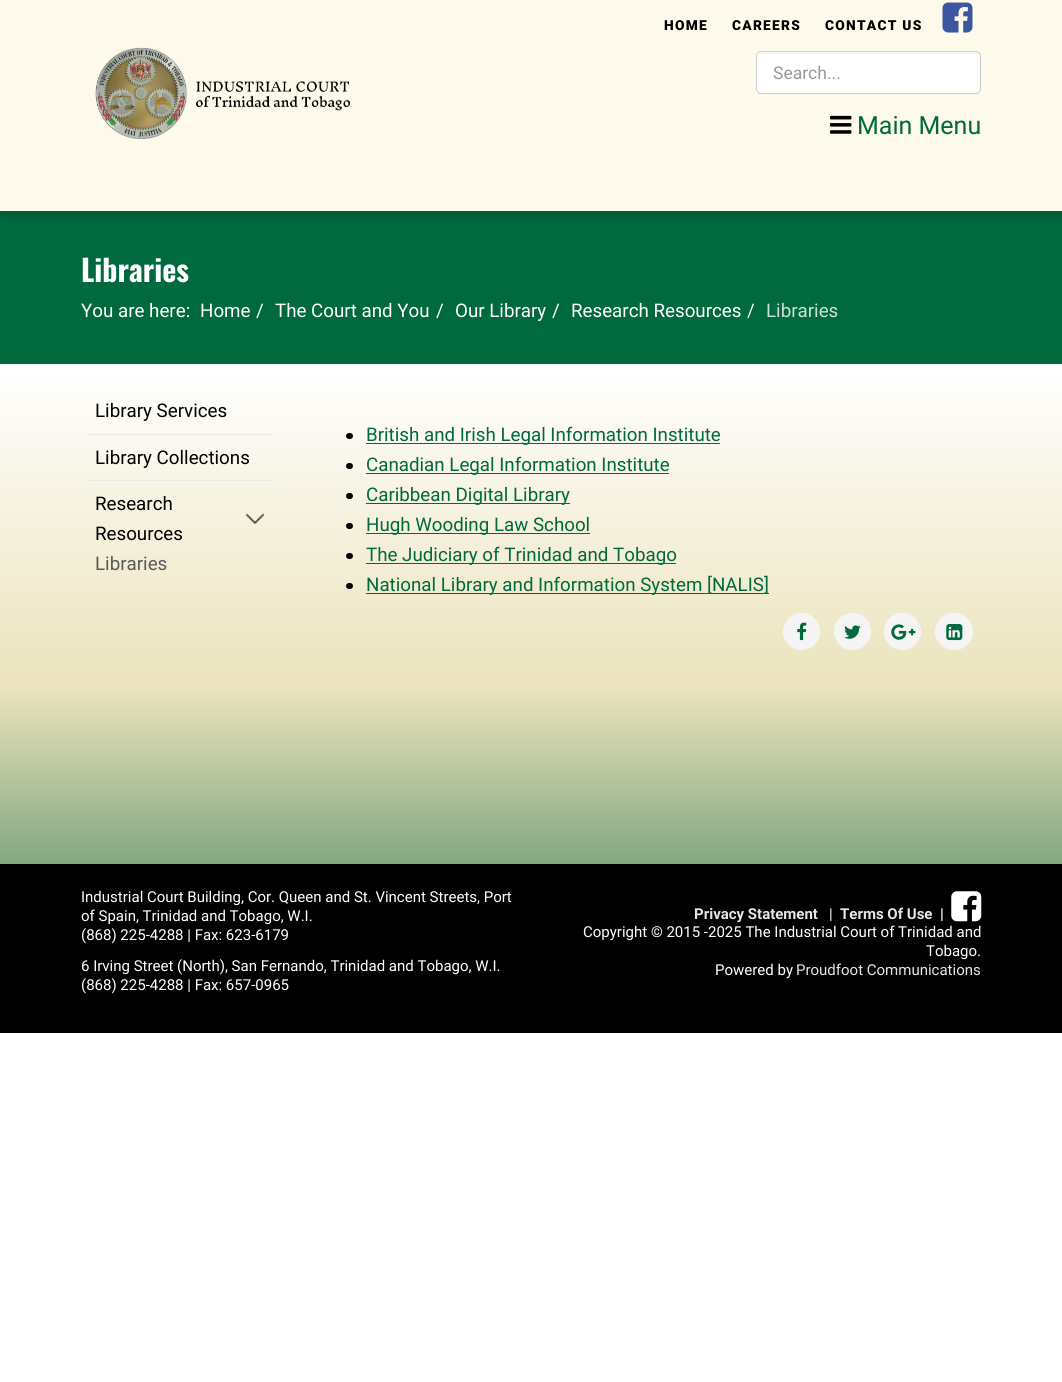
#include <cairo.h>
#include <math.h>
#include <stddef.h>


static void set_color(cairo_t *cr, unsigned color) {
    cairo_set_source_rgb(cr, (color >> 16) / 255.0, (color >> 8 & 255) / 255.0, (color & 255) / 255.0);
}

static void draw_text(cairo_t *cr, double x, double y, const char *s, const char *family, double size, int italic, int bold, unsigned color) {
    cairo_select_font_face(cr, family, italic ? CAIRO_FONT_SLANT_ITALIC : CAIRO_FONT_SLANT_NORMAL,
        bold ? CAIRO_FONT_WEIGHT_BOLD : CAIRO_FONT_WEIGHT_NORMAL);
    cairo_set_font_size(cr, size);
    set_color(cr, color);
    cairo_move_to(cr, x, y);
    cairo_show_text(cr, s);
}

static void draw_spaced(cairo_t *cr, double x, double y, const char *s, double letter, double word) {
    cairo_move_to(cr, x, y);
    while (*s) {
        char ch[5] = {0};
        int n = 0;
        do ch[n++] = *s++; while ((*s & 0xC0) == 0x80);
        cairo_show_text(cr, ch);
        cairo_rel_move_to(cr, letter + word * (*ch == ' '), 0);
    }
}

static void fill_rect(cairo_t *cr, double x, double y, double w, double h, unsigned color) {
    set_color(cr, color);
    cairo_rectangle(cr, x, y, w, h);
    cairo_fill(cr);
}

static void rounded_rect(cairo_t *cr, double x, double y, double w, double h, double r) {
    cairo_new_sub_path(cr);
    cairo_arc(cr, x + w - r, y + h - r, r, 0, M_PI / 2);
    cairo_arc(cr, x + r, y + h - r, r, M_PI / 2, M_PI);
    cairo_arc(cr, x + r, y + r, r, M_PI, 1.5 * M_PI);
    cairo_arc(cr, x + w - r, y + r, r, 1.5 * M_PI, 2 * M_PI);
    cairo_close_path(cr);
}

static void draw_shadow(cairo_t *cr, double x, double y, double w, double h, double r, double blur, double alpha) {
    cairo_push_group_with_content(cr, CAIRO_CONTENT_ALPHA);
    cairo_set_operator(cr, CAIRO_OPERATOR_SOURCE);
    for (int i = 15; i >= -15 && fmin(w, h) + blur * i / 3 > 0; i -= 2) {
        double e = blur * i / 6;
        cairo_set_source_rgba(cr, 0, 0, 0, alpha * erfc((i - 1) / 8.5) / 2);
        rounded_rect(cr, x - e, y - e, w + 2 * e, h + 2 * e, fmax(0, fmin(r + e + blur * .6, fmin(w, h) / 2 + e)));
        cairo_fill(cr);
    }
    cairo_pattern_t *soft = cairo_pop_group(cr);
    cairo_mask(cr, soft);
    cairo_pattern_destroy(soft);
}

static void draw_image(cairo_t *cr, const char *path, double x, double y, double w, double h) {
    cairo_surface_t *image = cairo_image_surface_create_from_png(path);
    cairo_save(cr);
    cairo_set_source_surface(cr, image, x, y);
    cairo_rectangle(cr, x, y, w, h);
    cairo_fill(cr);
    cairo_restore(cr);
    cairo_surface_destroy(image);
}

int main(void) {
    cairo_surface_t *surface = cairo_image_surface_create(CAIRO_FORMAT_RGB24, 1062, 1382);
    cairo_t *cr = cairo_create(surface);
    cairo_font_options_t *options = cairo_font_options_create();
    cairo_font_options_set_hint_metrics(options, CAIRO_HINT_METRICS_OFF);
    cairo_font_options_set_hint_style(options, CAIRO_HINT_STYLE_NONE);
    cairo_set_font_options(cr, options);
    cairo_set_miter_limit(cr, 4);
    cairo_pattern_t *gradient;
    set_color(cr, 0xFFFFFF);
    cairo_paint(cr);
    fill_rect(cr, 0, 216, 1062, 148, 0x00693E);
    set_color(cr, 0x000000);
    draw_shadow(cr, 0, 4, 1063, 216, 0, 2, 0.05);
    fill_rect(cr, 0, 0, 1062, 211, 0xFDFAEC);
    fill_rect(cr, 0, 211, 1062, 5, 0x015B36);
    draw_image(cr, "assets/img1.png", 95, 47, 255, 92);
    cairo_select_font_face(cr, "Roboto Black", CAIRO_FONT_SLANT_NORMAL, CAIRO_FONT_WEIGHT_NORMAL);
    cairo_set_font_size(cr, 13.75);
    set_color(cr, 0x000000);
    draw_spaced(cr, 664, 30, "HOME", 1.25, 0);
    draw_spaced(cr, 732, 30, "CAREERS", 1.25, 0);
    draw_spaced(cr, 825, 30, "CONTACT US", 1.25, 0);
    draw_image(cr, "assets/img2.png", 942, 2, 31, 31);
    set_color(cr, 0xFFFFFF);
    rounded_rect(cr, 756, 51, 225, 43, 5);
    cairo_fill(cr);
    set_color(cr, 0xECECEC);
    cairo_new_path(cr);
    cairo_move_to(cr, 761, 54);
    cairo_line_to(cr, 976, 54);
    cairo_curve_to(cr, 978, 54, 980, 55, 980, 58);
    cairo_curve_to(cr, 980, 55, 979, 53, 976, 53);
    cairo_line_to(cr, 762, 53);
    cairo_curve_to(cr, 759, 53, 758, 55, 758, 58);
    cairo_curve_to(cr, 758, 55, 759, 54, 761, 54);
    cairo_close_path(cr);
    cairo_fill(cr);
    rounded_rect(cr, 756.5, 51.5, 224, 42, 4.5);
    set_color(cr, 0xCCCCCC);
    cairo_set_line_width(cr, 1);
    cairo_stroke(cr);
    draw_text(cr, 773, 79, "Search...", "Roboto", 17.5, 0, 0, 0x999999);
    draw_image(cr, "assets/img3.png", 830, 115, 22, 19);
    draw_text(cr, 857, 134, "Main Menu", "Roboto", 25, 0, 0, 0x00693E);
    draw_text(cr, 81, 282, "Libraries", "Oswald", 30, 0, 1, 0xFFFFFF);
    draw_text(cr, 81, 317, "You are here:", "Roboto", 18.75, 0, 0, 0xFFFFFF);
    draw_text(cr, 200, 317, "Home", "Roboto", 18.75, 0, 0, 0xFFFFFF);
    draw_text(cr, 256, 317, "/", "Roboto", 18.75, 0, 0, 0xFFFFFF);
    draw_text(cr, 275, 317, "The Court and You", "Roboto", 18.75, 0, 0, 0xFFFFFF);
    draw_text(cr, 436, 317, "/", "Roboto", 18.75, 0, 0, 0xFFFFFF);
    draw_text(cr, 455, 317, "Our Library", "Roboto", 18.75, 0, 0, 0xFFFFFF);
    draw_text(cr, 552, 317, "/", "Roboto", 18.75, 0, 0, 0xFFFFFF);
    draw_text(cr, 571, 317, "Research Resources", "Roboto", 18.75, 0, 0, 0xFFFFFF);
    draw_text(cr, 747, 317, "/", "Roboto", 18.75, 0, 0, 0xFFFFFF);
    draw_text(cr, 766, 317, "Libraries", "Roboto", 18.75, 0, 0, 0xCCE1D8);
    gradient = cairo_pattern_create_linear(531, 364, 531, 864);
    cairo_pattern_add_color_stop_rgba(gradient, 0, 1, 1, 1, 1);
    cairo_pattern_add_color_stop_rgba(gradient, 0.65, 0.922, 0.89, 0.737, 1);
    cairo_pattern_add_color_stop_rgba(gradient, 1, 0.514, 0.655, 0.506, 1);
    cairo_set_source(cr, gradient);
    cairo_pattern_destroy(gradient);
    cairo_rectangle(cr, 0, 376, 1062, 488);
    cairo_fill(cr);
    fill_rect(cr, 88, 434, 185, 1, 0xE8E8E8);
    draw_text(cr, 95, 417, "Library Services", "Roboto", 18.75, 0, 0, 0x000000);
    fill_rect(cr, 88, 480, 185, 1, 0xE8E8E8);
    draw_text(cr, 95, 464, "Library Collections", "Roboto", 18.75, 0, 0, 0x000000);
    draw_text(cr, 95, 510, "Research", "Roboto", 18.75, 0, 0, 0x000000);
    draw_image(cr, "assets/img4.png", 245, 513, 19, 11);
    draw_text(cr, 95, 540, "Resources", "Roboto", 18.75, 0, 0, 0x000000);
    draw_text(cr, 95, 570, "Libraries", "Roboto", 18.75, 0, 0, 0x595959);
    set_color(cr, 0x000000);
    rounded_rect(cr, 346, 433, 7, 6, 3);
    cairo_fill(cr);
    fill_rect(cr, 366, 443, 354, 1, 0x00693E);
    draw_text(cr, 366, 441, "British and Irish Legal Information Institute", "Roboto", 18.75, 0, 0, 0x00693E);
    set_color(cr, 0x000000);
    rounded_rect(cr, 346, 463, 7, 6, 3);
    cairo_fill(cr);
    fill_rect(cr, 366, 473, 303, 1, 0x00693E);
    draw_text(cr, 366, 471, "Canadian Legal Information Institute", "Roboto", 18.75, 0, 0, 0x00693E);
    set_color(cr, 0x000000);
    rounded_rect(cr, 346, 493, 7, 6, 3);
    cairo_fill(cr);
    fill_rect(cr, 366, 503, 204, 1, 0x00693E);
    draw_text(cr, 366, 501, "Caribbean Digital Library", "Roboto", 18.75, 0, 0, 0x00693E);
    set_color(cr, 0x000000);
    rounded_rect(cr, 346, 523, 7, 6, 3);
    cairo_fill(cr);
    fill_rect(cr, 366, 533, 224, 1, 0x00693E);
    draw_text(cr, 366, 531, "Hugh Wooding Law School", "Roboto", 18.75, 0, 0, 0x00693E);
    set_color(cr, 0x000000);
    rounded_rect(cr, 346, 553, 7, 6, 3);
    cairo_fill(cr);
    fill_rect(cr, 366, 563, 310, 1, 0x00693E);
    draw_text(cr, 366, 561, "The Judiciary of Trinidad and Tobago", "Roboto", 18.75, 0, 0, 0x00693E);
    set_color(cr, 0x000000);
    rounded_rect(cr, 346, 583, 7, 6, 3);
    cairo_fill(cr);
    fill_rect(cr, 366, 593, 403, 1, 0x00693E);
    draw_text(cr, 366, 591, "National Library and Information System [NALIS]", "Roboto", 18.75, 0, 0, 0x00693E);
    set_color(cr, 0xF5F5F5);
    cairo_new_path(cr);
    cairo_arc(cr, 801.5, 631.5, 18.5, 0, 2 * M_PI);
    cairo_fill(cr);
    draw_image(cr, "assets/img5.png", 797, 622, 10, 19);
    cairo_arc(cr, 852.5, 631.5, 18.5, 0, 2 * M_PI);
    cairo_fill(cr);
    draw_image(cr, "assets/img6.png", 844, 625, 17, 14);
    cairo_arc(cr, 902.5, 631.5, 18.5, 0, 2 * M_PI);
    cairo_fill(cr);
    draw_image(cr, "assets/img7.png", 891, 624, 25, 16);
    rounded_rect(cr, 935, 613, 38, 37, 18.5);
    cairo_fill(cr);
    draw_image(cr, "assets/img8.png", 946, 624, 17, 17);
    fill_rect(cr, 0, 864, 1062, 169, 0x000000);
    draw_text(cr, 81, 902, "Industrial Court Building, Cor. Queen and St. Vincent Streets, Port", "Roboto", 15, 0, 0, 0xFFFFFF);
    draw_text(cr, 81, 921, "of Spain, Trinidad and Tobago, W.I.", "Roboto", 15, 0, 0, 0xFFFFFF);
    draw_text(cr, 81, 940, "(868) 225-4288 | Fax: 623-6179", "Roboto", 15, 0, 0, 0xFFFFFF);
    draw_text(cr, 81, 971, "6 Irving Street (North), San Fernando, Trinidad and Tobago, W.I.", "Roboto", 15, 0, 0, 0xFFFFFF);
    draw_text(cr, 81, 990, "(868) 225-4288 | Fax: 657-0965", "Roboto", 15, 0, 0, 0xFFFFFF);
    draw_text(cr, 694, 919, "Privacy Statement", "Roboto", 15, 0, 1, 0xE6E6E6);
    draw_text(cr, 829, 919, "|", "Roboto", 15, 0, 0, 0xFFFFFF);
    draw_text(cr, 840, 919, "Terms Of Use", "Roboto", 15, 0, 1, 0xE6E6E6);
    draw_text(cr, 940, 919, "|", "Roboto", 15, 0, 1, 0xFFFFFF);
    draw_image(cr, "assets/img9.png", 951, 891, 31, 31);
    draw_text(cr, 583, 937, "Copyright © 2015 -2025 The Industrial Court of Trinidad and", "Roboto", 15, 0, 0, 0xFFFFFF);
    draw_text(cr, 926, 956, "Tobago.", "Roboto", 15, 0, 0, 0xFFFFFF);
    draw_text(cr, 715, 975, "Powered by", "Roboto", 15, 0, 0, 0xFFFFFF);
    draw_text(cr, 796, 975, "Proudfoot Communications", "Roboto", 15, 0, 0, 0xE6E6E6);
    cairo_surface_write_to_png(surface, "output.png");
    cairo_font_options_destroy(options);
    cairo_destroy(cr);
    cairo_surface_destroy(surface);
    return 0;
}
